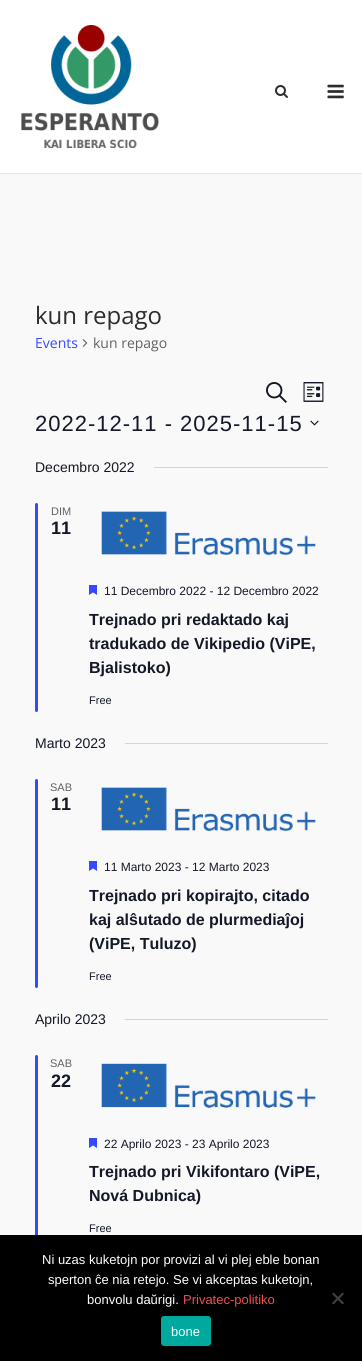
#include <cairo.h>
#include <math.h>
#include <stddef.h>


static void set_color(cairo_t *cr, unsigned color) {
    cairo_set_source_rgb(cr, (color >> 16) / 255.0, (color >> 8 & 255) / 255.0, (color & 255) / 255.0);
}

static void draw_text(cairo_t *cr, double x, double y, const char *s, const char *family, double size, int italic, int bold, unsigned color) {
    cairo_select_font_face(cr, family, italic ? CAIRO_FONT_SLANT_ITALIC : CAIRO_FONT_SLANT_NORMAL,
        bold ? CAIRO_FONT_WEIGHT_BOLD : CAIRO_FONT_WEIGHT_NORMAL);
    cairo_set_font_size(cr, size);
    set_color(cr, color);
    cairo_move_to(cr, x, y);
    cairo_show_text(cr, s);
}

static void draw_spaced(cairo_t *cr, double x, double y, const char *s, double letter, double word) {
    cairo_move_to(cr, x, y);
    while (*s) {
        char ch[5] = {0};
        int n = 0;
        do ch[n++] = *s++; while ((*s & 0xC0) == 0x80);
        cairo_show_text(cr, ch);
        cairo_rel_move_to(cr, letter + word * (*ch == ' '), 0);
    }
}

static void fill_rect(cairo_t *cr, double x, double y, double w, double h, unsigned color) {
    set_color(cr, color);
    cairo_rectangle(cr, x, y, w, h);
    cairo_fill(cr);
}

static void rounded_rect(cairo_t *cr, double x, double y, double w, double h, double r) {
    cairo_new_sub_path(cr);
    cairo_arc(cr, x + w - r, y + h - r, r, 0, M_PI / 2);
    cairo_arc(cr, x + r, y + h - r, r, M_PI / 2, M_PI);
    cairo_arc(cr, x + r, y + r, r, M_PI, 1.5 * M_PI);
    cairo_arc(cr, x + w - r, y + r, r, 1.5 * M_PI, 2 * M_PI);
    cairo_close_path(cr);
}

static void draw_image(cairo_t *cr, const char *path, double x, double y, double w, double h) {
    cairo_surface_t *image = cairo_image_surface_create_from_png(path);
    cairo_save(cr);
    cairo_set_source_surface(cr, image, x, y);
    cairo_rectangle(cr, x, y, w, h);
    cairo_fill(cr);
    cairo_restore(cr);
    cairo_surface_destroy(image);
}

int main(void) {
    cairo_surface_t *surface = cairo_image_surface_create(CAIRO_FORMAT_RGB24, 362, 1361);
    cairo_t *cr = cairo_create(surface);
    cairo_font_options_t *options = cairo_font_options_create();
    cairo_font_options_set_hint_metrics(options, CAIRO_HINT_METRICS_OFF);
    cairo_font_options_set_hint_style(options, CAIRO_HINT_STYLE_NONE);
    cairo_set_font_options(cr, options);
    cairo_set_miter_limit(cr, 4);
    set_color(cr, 0xF9F9F9);
    cairo_paint(cr);
    fill_rect(cr, 0, 0, 362, 173, 0xFFFFFF);
    fill_rect(cr, 0, 173, 362, 1, 0xE6E6E6);
    draw_image(cr, "assets/img1.png", 21, 25, 138, 123);
    draw_image(cr, "assets/img2.png", 275, 85, 13, 13);
    draw_image(cr, "assets/img3.png", 327, 84, 17, 15);
    draw_text(cr, 35, 324, "kun repago", "Open Sans", 24, 0, 0, 0x2D2D2D);
    draw_text(cr, 35, 348, "Events", "Open Sans", 14, 0, 0, 0x334AFF);
    draw_image(cr, "assets/img4.png", 82, 339, 6, 8);
    draw_text(cr, 93, 348, "kun repago", "Open Sans", 14, 0, 0, 0x626262);
    draw_image(cr, "assets/img5.png", 266, 382, 21, 21);
    draw_image(cr, "assets/img6.png", 303, 382, 21, 20);
    cairo_select_font_face(cr, "Liberation Sans", CAIRO_FONT_SLANT_NORMAL, CAIRO_FONT_WEIGHT_NORMAL);
    cairo_set_font_size(cr, 22);
    set_color(cr, 0x141827);
    draw_spaced(cr, 35, 431, "2022-12-11 - 2025-11-15", 1, 0);
    draw_image(cr, "assets/img7.png", 310, 420, 9, 6);
    draw_text(cr, 35, 472, "Decembro 2022", "Liberation Sans", 14, 0, 0, 0x141827);
    fill_rect(cr, 154, 467, 174, 1, 0xD5D5D5);
    set_color(cr, 0x334AFF);
    rounded_rect(cr, 35, 503, 3, 209, 1.5);
    cairo_fill(cr);
    draw_text(cr, 51, 515, "DIM", "Liberation Sans", 11, 0, 0, 0x626262);
    draw_text(cr, 51, 534, "11", "Liberation Sans", 18, 0, 1, 0x141827);
    draw_image(cr, "assets/img8.png", 101, 511, 215, 45);
    draw_image(cr, "assets/img9.png", 89, 585, 8, 10);
    draw_text(cr, 104, 595, "11 Decembro 2022 - 12 Decembro 2022", "Liberation Sans", 12, 0, 0, 0x141827);
    draw_text(cr, 89, 625, "Trejnado pri redaktado kaj", "Liberation Sans", 16, 0, 1, 0x141827);
    draw_text(cr, 89, 649, "tradukado de Vikipedio (ViPE,", "Liberation Sans", 16, 0, 1, 0x141827);
    draw_text(cr, 89, 673, "Bjalistoko)", "Liberation Sans", 16, 0, 1, 0x141827);
    draw_text(cr, 89, 704, "Free", "Liberation Sans", 11, 0, 0, 0x141827);
    draw_text(cr, 35, 748, "Marto 2023", "Liberation Sans", 14, 0, 0, 0x141827);
    fill_rect(cr, 125, 743, 203, 1, 0xD5D5D5);
    set_color(cr, 0x334AFF);
    rounded_rect(cr, 35, 779, 3, 209, 1.5);
    cairo_fill(cr);
    draw_text(cr, 50, 791, "SAB", "Liberation Sans", 11, 0, 0, 0x626262);
    draw_text(cr, 51, 810, "11", "Liberation Sans", 18, 0, 1, 0x141827);
    draw_image(cr, "assets/img10.png", 101, 787, 215, 45);
    draw_image(cr, "assets/img9.png", 89, 861, 8, 10);
    draw_text(cr, 104, 871, "11 Marto 2023 - 12 Marto 2023", "Liberation Sans", 12, 0, 0, 0x141827);
    draw_text(cr, 89, 901, "Trejnado pri kopirajto, citado", "Liberation Sans", 16, 0, 1, 0x141827);
    draw_text(cr, 89, 925, "kaj alŝutado de plurmediaĵoj", "Liberation Sans", 16, 0, 1, 0x141827);
    draw_text(cr, 89, 949, "(ViPE, Tuluzo)", "Liberation Sans", 16, 0, 1, 0x141827);
    draw_text(cr, 89, 980, "Free", "Liberation Sans", 11, 0, 0, 0x141827);
    draw_text(cr, 35, 1024, "Aprilo 2023", "Liberation Sans", 14, 0, 0, 0x141827);
    fill_rect(cr, 125, 1019, 203, 1, 0xD5D5D5);
    set_color(cr, 0x334AFF);
    rounded_rect(cr, 35, 1055, 3, 186, 1.5);
    cairo_fill(cr);
    draw_text(cr, 50, 1067, "SAB", "Liberation Sans", 11, 0, 0, 0x626262);
    draw_text(cr, 51, 1087, "22", "Liberation Sans", 18, 0, 1, 0x141827);
    draw_image(cr, "assets/img11.png", 101, 1063, 215, 45);
    draw_image(cr, "assets/img9.png", 89, 1138, 8, 10);
    draw_text(cr, 104, 1148, "22 Aprilo 2023 - 23 Aprilo 2023", "Liberation Sans", 12, 0, 0, 0x141827);
    draw_text(cr, 89, 1177, "Trejnado pri Vikifontaro (ViPE,", "Liberation Sans", 16, 0, 1, 0x141827);
    draw_text(cr, 89, 1201, "Nová Dubnica)", "Liberation Sans", 16, 0, 1, 0x141827);
    draw_text(cr, 89, 1232, "Free", "Liberation Sans", 11, 0, 0, 0x141827);
    fill_rect(cr, 0, 1235, 362, 126, 0x000000);
    draw_text(cr, 42, 1264, "Ni uzas kuketojn por provizi al vi plej eble bonan", "Liberation Sans", 13, 0, 0, 0xFFFFFF);
    draw_text(cr, 48, 1284, "sperton ĉe nia retejo. Se vi akceptas kuketojn,", "Liberation Sans", 13, 0, 0, 0xFFFFFF);
    draw_text(cr, 87, 1304, "bonvolu daŭrigi.", "Liberation Sans", 13, 0, 0, 0xFFFFFF);
    draw_text(cr, 183, 1304, "Privatec-politiko", "Liberation Sans", 13, 0, 0, 0xF14E4E);
    set_color(cr, 0x404040);
    cairo_new_path(cr);
    cairo_move_to(cr, 342.5, 1292.5);
    cairo_line_to(cr, 344, 1294);
    cairo_line_to(cr, 333.5, 1304.5);
    cairo_line_to(cr, 332, 1303);
    cairo_close_path(cr);
    cairo_fill(cr);
    cairo_new_path(cr);
    cairo_move_to(cr, 332, 1294);
    cairo_line_to(cr, 333.5, 1292.5);
    cairo_line_to(cr, 344, 1303);
    cairo_line_to(cr, 342.5, 1304.5);
    cairo_close_path(cr);
    cairo_fill(cr);
    set_color(cr, 0x00A99D);
    rounded_rect(cr, 161, 1316, 50, 30, 3);
    cairo_fill(cr);
    draw_text(cr, 171, 1336, "bone", "Liberation Sans", 13, 0, 0, 0xFFFFFF);
    cairo_surface_write_to_png(surface, "output.png");
    cairo_font_options_destroy(options);
    cairo_destroy(cr);
    cairo_surface_destroy(surface);
    return 0;
}
